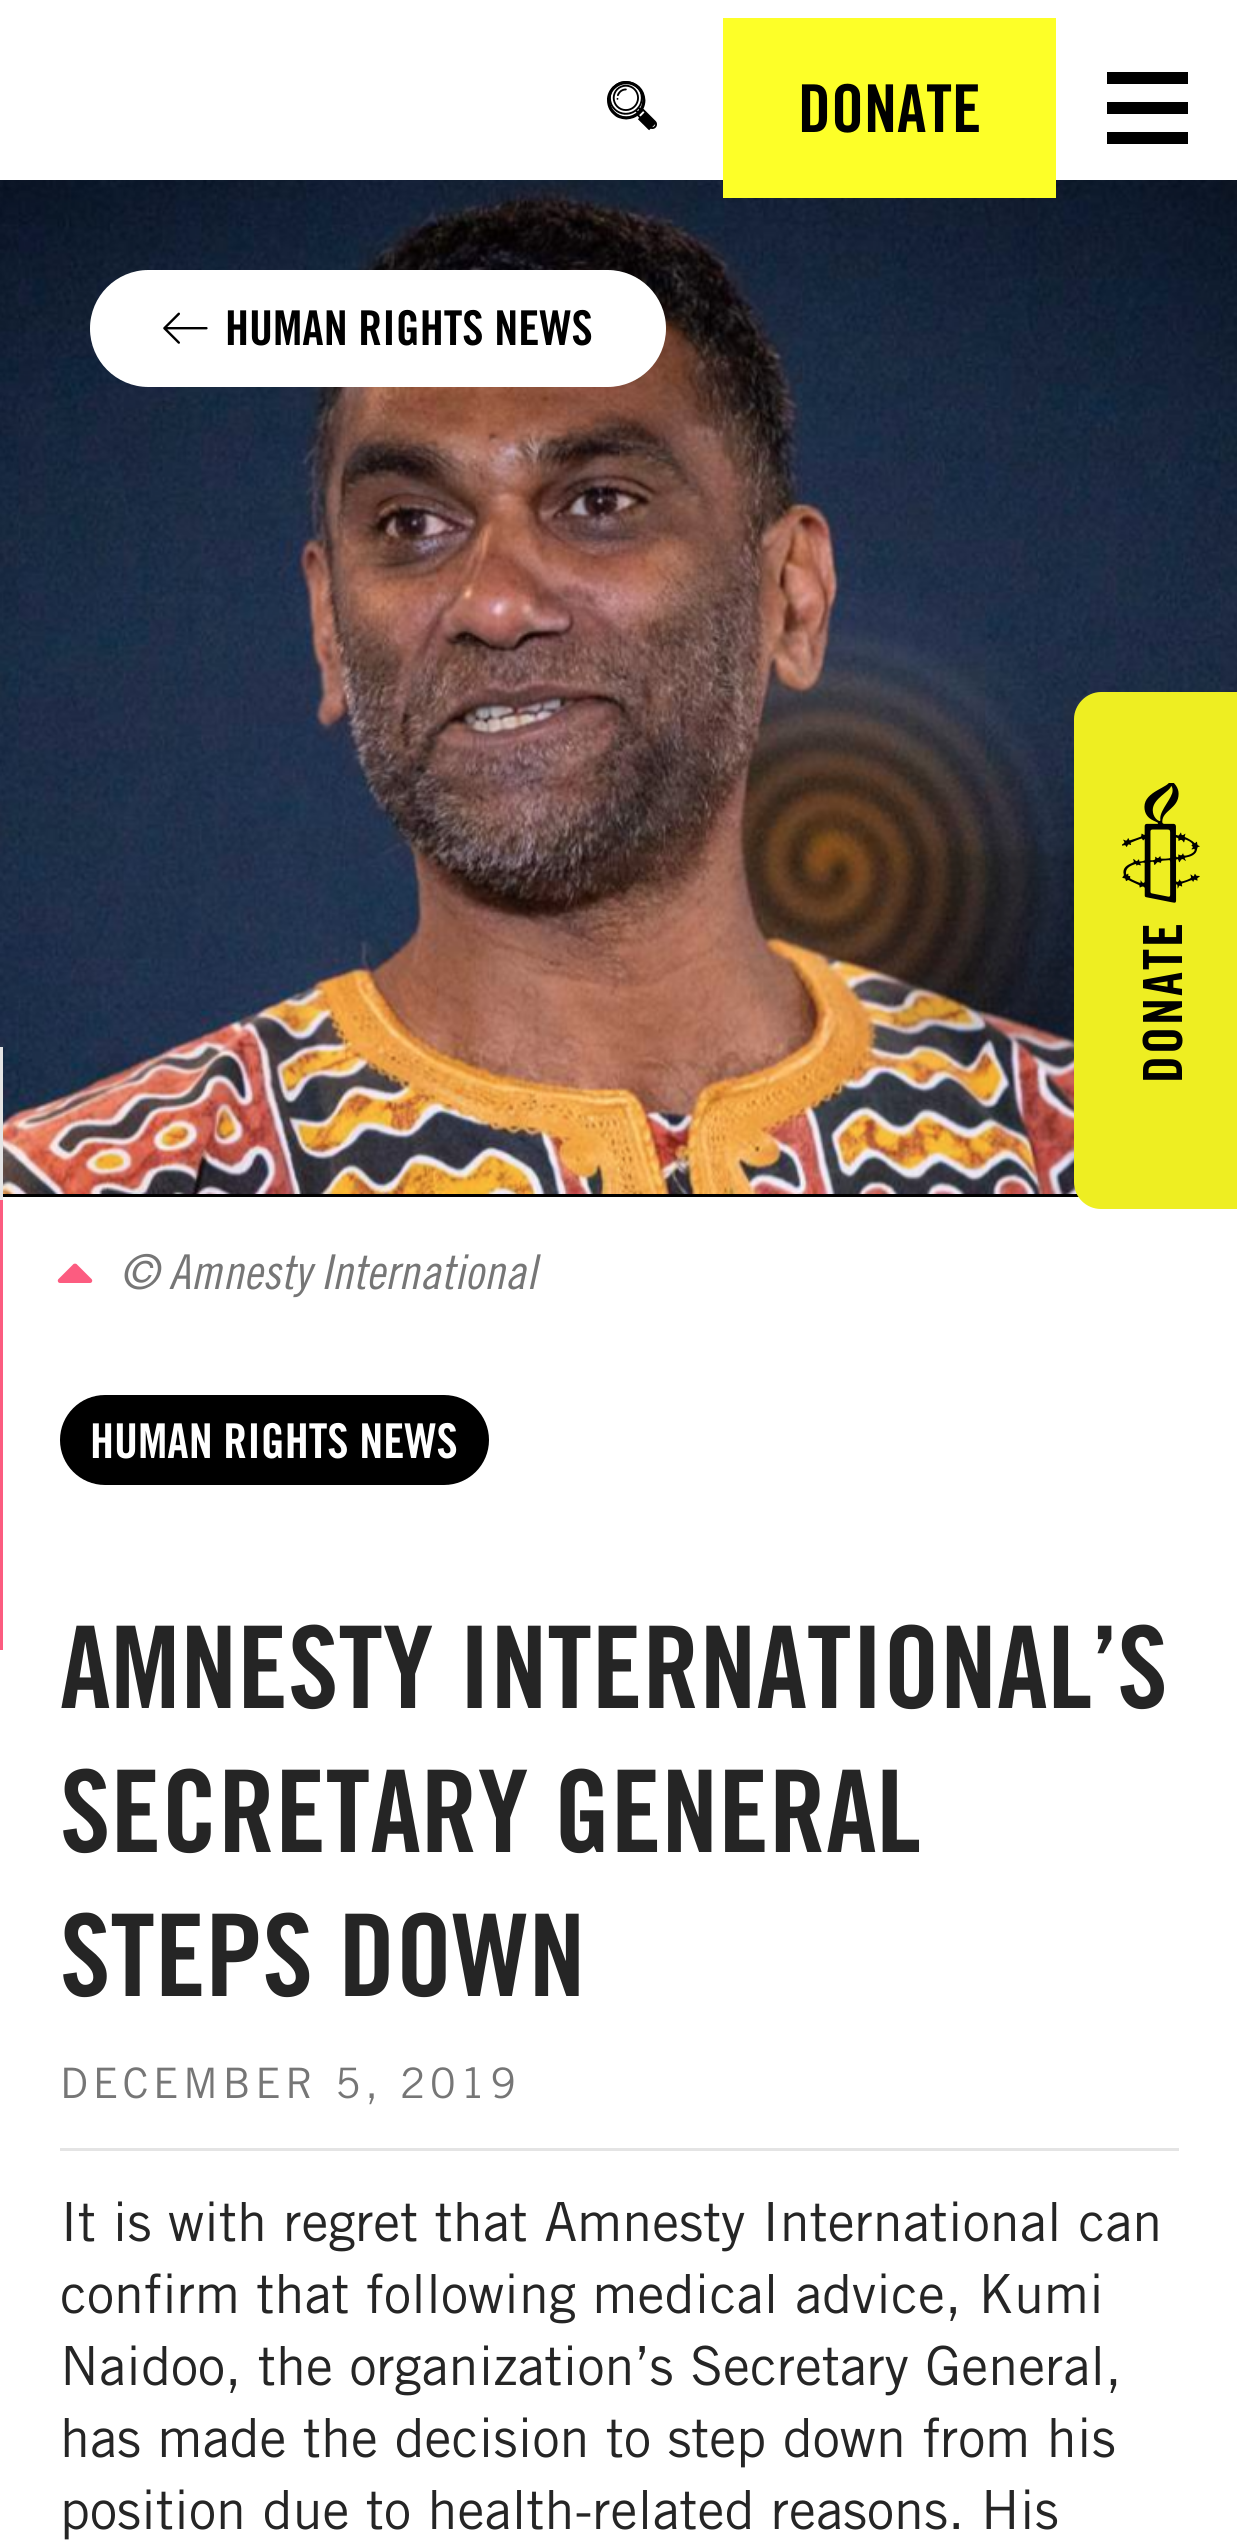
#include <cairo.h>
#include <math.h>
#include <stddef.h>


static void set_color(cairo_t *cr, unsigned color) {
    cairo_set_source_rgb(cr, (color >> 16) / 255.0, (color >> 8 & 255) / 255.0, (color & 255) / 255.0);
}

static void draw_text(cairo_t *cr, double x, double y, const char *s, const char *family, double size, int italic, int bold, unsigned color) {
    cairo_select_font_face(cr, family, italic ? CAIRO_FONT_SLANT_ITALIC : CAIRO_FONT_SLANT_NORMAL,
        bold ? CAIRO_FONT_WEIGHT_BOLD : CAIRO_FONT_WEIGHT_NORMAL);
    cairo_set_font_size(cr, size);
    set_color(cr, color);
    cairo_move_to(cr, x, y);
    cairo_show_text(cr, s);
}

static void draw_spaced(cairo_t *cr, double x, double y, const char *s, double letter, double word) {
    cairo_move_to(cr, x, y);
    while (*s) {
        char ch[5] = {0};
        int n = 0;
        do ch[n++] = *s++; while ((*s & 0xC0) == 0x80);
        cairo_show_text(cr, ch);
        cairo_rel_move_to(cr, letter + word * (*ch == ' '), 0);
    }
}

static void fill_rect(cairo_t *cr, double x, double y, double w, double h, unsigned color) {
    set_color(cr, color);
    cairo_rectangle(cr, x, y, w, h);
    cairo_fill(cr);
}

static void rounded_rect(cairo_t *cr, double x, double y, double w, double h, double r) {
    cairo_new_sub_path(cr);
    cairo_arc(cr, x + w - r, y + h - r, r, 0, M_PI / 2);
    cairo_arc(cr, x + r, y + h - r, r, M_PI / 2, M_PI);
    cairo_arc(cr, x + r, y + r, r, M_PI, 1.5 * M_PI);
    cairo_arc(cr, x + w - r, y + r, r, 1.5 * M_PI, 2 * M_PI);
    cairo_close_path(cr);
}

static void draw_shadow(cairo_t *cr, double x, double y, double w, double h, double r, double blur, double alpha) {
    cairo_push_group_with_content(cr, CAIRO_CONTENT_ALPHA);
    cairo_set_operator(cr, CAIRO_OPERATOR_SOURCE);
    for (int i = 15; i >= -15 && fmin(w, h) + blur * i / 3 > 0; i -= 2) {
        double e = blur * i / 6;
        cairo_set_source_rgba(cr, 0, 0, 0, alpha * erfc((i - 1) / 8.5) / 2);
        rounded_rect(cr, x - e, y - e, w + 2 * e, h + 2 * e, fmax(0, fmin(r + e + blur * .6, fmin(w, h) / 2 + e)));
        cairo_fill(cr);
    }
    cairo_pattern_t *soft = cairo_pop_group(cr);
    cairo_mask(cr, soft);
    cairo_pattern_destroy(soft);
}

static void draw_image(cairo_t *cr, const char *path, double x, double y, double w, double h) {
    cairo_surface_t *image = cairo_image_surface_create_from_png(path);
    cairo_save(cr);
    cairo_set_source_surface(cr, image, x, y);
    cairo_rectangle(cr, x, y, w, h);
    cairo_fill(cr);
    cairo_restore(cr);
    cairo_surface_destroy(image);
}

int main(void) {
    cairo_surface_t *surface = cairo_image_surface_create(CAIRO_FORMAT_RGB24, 1237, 2541);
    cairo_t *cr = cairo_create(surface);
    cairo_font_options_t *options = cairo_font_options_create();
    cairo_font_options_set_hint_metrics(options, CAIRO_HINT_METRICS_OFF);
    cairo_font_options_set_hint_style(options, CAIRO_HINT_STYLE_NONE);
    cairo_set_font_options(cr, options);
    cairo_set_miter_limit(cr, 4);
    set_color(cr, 0xFFFFFF);
    cairo_paint(cr);
    draw_image(cr, "assets/img1.png", 607, 81, 50, 50);
    draw_image(cr, "assets/img2.png", 610, 81, 47, 48);
    draw_image(cr, "assets/img3.png", 0, 180, 1237, 1014);
    fill_rect(cr, 723, 18, 333, 180, 0xFDFF28);
    draw_text(cr, 798, 132, "DONATE", "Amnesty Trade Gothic", 66, 0, 1, 0x000000);
    fill_rect(cr, 1107, 102, 81, 12, 0x000000);
    fill_rect(cr, 1107, 72, 81, 12, 0x000000);
    fill_rect(cr, 1107, 132, 81, 12, 0x000000);
    fill_rect(cr, 3, 1194, 1076, 3, 0x000000);
    set_color(cr, 0xFFFFFF);
    rounded_rect(cr, 90, 270, 576, 117, 58.5);
    cairo_fill(cr);
    draw_image(cr, "assets/img4.png", 163, 312, 45, 32);
    draw_text(cr, 225, 345, "HUMAN RIGHTS NEWS", "Amnesty Trade Gothic", 48, 0, 1, 0x000000);
    fill_rect(cr, 0, 1047, 3, 153, 0xE4E4E4);
    set_color(cr, 0xFC5C80);
    cairo_new_path(cr);
    cairo_move_to(cr, 90, 1283);
    cairo_line_to(cr, 60, 1283);
    cairo_curve_to(cr, 58, 1283, 57, 1280.5, 58.5, 1279);
    cairo_line_to(cr, 73.5, 1264);
    cairo_curve_to(cr, 74.5, 1263.5, 75.5, 1263.5, 76.5, 1264);
    cairo_line_to(cr, 91.5, 1279);
    cairo_curve_to(cr, 93, 1280.5, 92, 1283, 90, 1283);
    cairo_close_path(cr);
    cairo_fill(cr);
    draw_text(cr, 120, 1289, "© Amnesty International", "Amnesty Trade Gothic", 48, 1, 0, 0x767676);
    fill_rect(cr, 0, 1200, 3, 450, 0xFC5C80);
    set_color(cr, 0x000000);
    rounded_rect(cr, 60, 1395, 429, 90, 45);
    cairo_fill(cr);
    draw_text(cr, 90, 1458, "HUMAN RIGHTS NEWS", "Amnesty Trade Gothic", 48, 0, 1, 0xFFFFFF);
    draw_text(cr, 60, 1708, "AMNESTY INTERNATIONAL’S", "Amnesty Trade Gothic", 114, 0, 1, 0x252525);
    draw_text(cr, 60, 1852, "SECRETARY GENERAL", "Amnesty Trade Gothic", 114, 0, 1, 0x252525);
    draw_text(cr, 60, 1996, "STEPS DOWN", "Amnesty Trade Gothic", 114, 0, 1, 0x252525);
    cairo_select_font_face(cr, "Amnesty Trade Gothic", CAIRO_FONT_SLANT_NORMAL, CAIRO_FONT_WEIGHT_NORMAL);
    cairo_set_font_size(cr, 42);
    set_color(cr, 0x767676);
    draw_spaced(cr, 60, 2098, "DECEMBER 5, 2019", 4.5, 0);
    fill_rect(cr, 60, 2148, 1119, 3, 0xE4E4E4);
    draw_text(cr, 60, 2241, "It is with regret that Amnesty International can", "Amnesty Trade Gothic", 54, 0, 0, 0x252525);
    draw_text(cr, 60, 2313, "confirm that following medical advice, Kumi", "Amnesty Trade Gothic", 54, 0, 0, 0x252525);
    draw_text(cr, 60, 2385, "Naidoo, the organization’s Secretary General,", "Amnesty Trade Gothic", 54, 0, 0, 0x252525);
    draw_text(cr, 60, 2457, "has made the decision to step down from his", "Amnesty Trade Gothic", 54, 0, 0, 0x252525);
    draw_text(cr, 60, 2529, "position due to health-related reasons. His", "Amnesty Trade Gothic", 54, 0, 0, 0x252525);
    set_color(cr, 0x000000);
    draw_shadow(cr, 891, 852, 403, 198, 39, 6, 0.12);
    set_color(cr, 0xEEEE22);
    cairo_new_path(cr);
    cairo_move_to(cr, 1074, 1182);
    cairo_line_to(cr, 1074, 719);
    cairo_curve_to(cr, 1074, 705, 1086, 692, 1101, 692);
    cairo_line_to(cr, 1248, 692);
    cairo_line_to(cr, 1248, 1209);
    cairo_line_to(cr, 1101, 1209);
    cairo_curve_to(cr, 1086, 1209, 1074, 1197, 1074, 1182);
    cairo_close_path(cr);
    cairo_fill(cr);
    draw_image(cr, "assets/img5.png", 1122, 783, 78, 120);
    cairo_select_font_face(cr, "Amnesty Trade Gothic", CAIRO_FONT_SLANT_NORMAL, CAIRO_FONT_WEIGHT_BOLD);
    set_color(cr, 0x000000);
    cairo_save(cr);
    cairo_translate(cr, 1182, 1083);
    cairo_rotate(cr, -90 * M_PI / 180);
    draw_spaced(cr, 0, 0, "DONATE", 2, 0);
    cairo_restore(cr);
    cairo_surface_write_to_png(surface, "output.png");
    cairo_font_options_destroy(options);
    cairo_destroy(cr);
    cairo_surface_destroy(surface);
    return 0;
}
